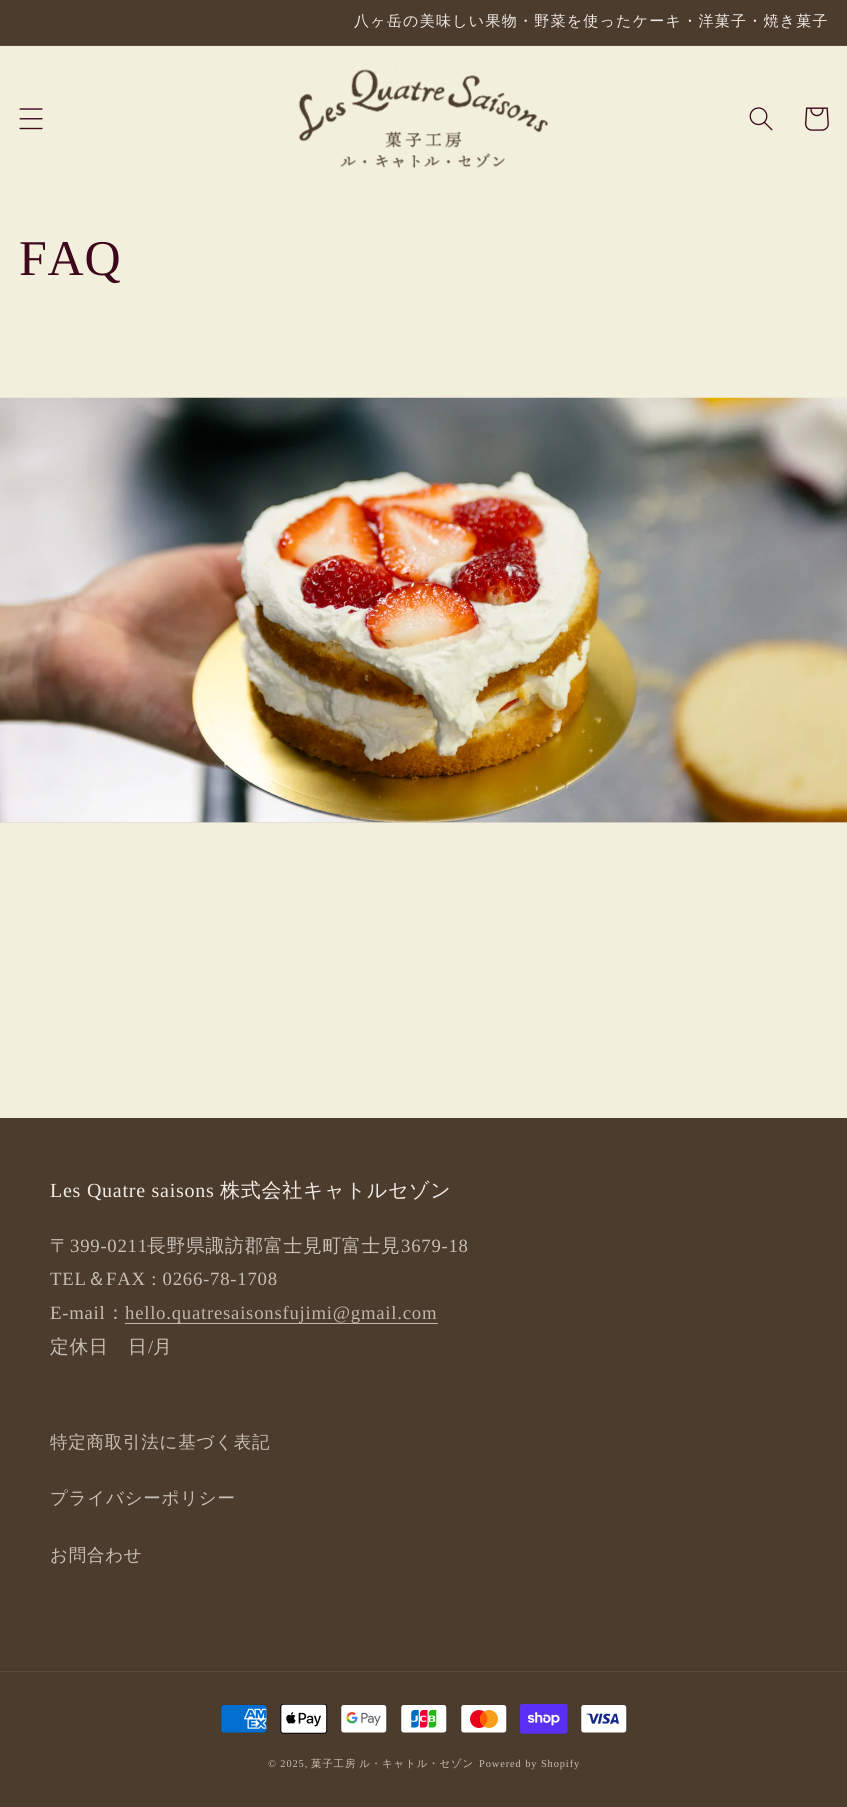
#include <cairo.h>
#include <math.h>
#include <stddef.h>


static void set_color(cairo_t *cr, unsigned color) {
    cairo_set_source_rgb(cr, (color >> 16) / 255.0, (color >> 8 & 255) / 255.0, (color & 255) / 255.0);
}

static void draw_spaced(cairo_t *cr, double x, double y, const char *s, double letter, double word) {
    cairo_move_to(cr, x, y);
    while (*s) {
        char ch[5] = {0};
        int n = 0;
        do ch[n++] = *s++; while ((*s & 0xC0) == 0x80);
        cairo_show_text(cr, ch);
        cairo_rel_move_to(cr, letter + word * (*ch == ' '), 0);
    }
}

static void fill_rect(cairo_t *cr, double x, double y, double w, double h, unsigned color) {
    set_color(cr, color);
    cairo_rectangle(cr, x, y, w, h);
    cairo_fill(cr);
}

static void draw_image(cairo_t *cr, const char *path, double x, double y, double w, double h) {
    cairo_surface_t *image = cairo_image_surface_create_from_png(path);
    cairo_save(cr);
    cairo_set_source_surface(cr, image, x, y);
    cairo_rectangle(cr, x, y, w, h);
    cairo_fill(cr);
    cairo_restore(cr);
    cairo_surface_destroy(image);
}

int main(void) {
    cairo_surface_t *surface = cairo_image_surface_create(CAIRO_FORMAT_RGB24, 847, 1807);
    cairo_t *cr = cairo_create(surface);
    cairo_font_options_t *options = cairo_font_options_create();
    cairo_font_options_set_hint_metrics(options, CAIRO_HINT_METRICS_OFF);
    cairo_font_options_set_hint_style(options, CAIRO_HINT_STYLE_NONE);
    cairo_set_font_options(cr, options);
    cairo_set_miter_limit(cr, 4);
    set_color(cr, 0xF2EFDD);
    cairo_paint(cr);
    fill_rect(cr, 0, 0, 847, 45, 0x4B3C2D);
    fill_rect(cr, 0, 45, 847, 1, 0x584A3C);
    cairo_select_font_face(cr, "WenQuanYi Zen Hei Medium", CAIRO_FONT_SLANT_NORMAL, CAIRO_FONT_WEIGHT_NORMAL);
    cairo_set_font_size(cr, 15);
    set_color(cr, 0xF0EAE4);
    draw_spaced(cr, 354, 26, "八ヶ岳の美味しい果物・野菜を使ったケーキ・洋菓子・焼き菓子", 1.25, 0);
    draw_image(cr, "assets/img1.png", 19, 108, 24, 22);
    draw_image(cr, "assets/img2.png", 298, 68, 251, 101);
    draw_image(cr, "assets/img3.png", 749, 107, 24, 24);
    draw_image(cr, "assets/img4.png", 805, 107, 24, 24);
    cairo_select_font_face(cr, "Liberation Serif", CAIRO_FONT_SLANT_NORMAL, CAIRO_FONT_WEIGHT_NORMAL);
    cairo_set_font_size(cr, 50);
    set_color(cr, 0x3D081B);
    draw_spaced(cr, 19, 275, "FAQ", 0.75, 0);
    fill_rect(cr, 0, 822, 847, 1, 0xDFD9C9);
    draw_image(cr, "assets/img5.png", 0, 397, 847, 426);
    fill_rect(cr, 0, 1118, 847, 689, 0x4B3C2D);
    cairo_set_font_size(cr, 20);
    set_color(cr, 0xF0EAE4);
    draw_spaced(cr, 50, 1197, "Les Quatre saisons", 0.75, 0);
    cairo_select_font_face(cr, "WenQuanYi Zen Hei Medium", CAIRO_FONT_SLANT_NORMAL, CAIRO_FONT_WEIGHT_NORMAL);
    draw_spaced(cr, 220, 1197, "株式会社キャトルセゾン", 0.75, 0);
    cairo_set_font_size(cr, 18.75);
    set_color(cr, 0xC7BFB6);
    draw_spaced(cr, 50, 1252, "〒", 0.75, 0);
    cairo_select_font_face(cr, "Liberation Serif", CAIRO_FONT_SLANT_NORMAL, CAIRO_FONT_WEIGHT_NORMAL);
    draw_spaced(cr, 70, 1252, "399-0211", 0.75, 0);
    cairo_select_font_face(cr, "WenQuanYi Zen Hei Medium", CAIRO_FONT_SLANT_NORMAL, CAIRO_FONT_WEIGHT_NORMAL);
    draw_spaced(cr, 147, 1252, "長野県諏訪郡富士見町富士見", 0.75, 0);
    cairo_select_font_face(cr, "Liberation Serif", CAIRO_FONT_SLANT_NORMAL, CAIRO_FONT_WEIGHT_NORMAL);
    draw_spaced(cr, 401, 1252, "3679-18", 0.75, 0);
    draw_spaced(cr, 50, 1285, "TEL", 0.75, 0);
    cairo_select_font_face(cr, "WenQuanYi Zen Hei Medium", CAIRO_FONT_SLANT_NORMAL, CAIRO_FONT_WEIGHT_NORMAL);
    draw_spaced(cr, 87, 1285, "＆", 0.75, 0);
    cairo_select_font_face(cr, "Liberation Serif", CAIRO_FONT_SLANT_NORMAL, CAIRO_FONT_WEIGHT_NORMAL);
    draw_spaced(cr, 106, 1285, "FAX : 0266-78-1708", 0.75, 0);
    draw_spaced(cr, 50, 1319, "E-mail", 0.75, 0);
    cairo_select_font_face(cr, "WenQuanYi Zen Hei Medium", CAIRO_FONT_SLANT_NORMAL, CAIRO_FONT_WEIGHT_NORMAL);
    draw_spaced(cr, 106, 1319, "：", 0.75, 0);
    fill_rect(cr, 125, 1323, 313, 1, 0xBFB6AD);
    cairo_select_font_face(cr, "Liberation Serif", CAIRO_FONT_SLANT_NORMAL, CAIRO_FONT_WEIGHT_NORMAL);
    draw_spaced(cr, 125, 1319, "hello.quatresaisonsfujimi@gmail.com", 0.75, 0);
    cairo_select_font_face(cr, "WenQuanYi Zen Hei Medium", CAIRO_FONT_SLANT_NORMAL, CAIRO_FONT_WEIGHT_NORMAL);
    set_color(cr, 0xC7BFB6);
    draw_spaced(cr, 50, 1353, "定休日　日", 0.75, 0);
    cairo_select_font_face(cr, "Liberation Serif", CAIRO_FONT_SLANT_NORMAL, CAIRO_FONT_WEIGHT_NORMAL);
    draw_spaced(cr, 148, 1353, "/", 0.75, 0);
    cairo_select_font_face(cr, "WenQuanYi Zen Hei Medium", CAIRO_FONT_SLANT_NORMAL, CAIRO_FONT_WEIGHT_NORMAL);
    draw_spaced(cr, 153, 1353, "月", 0.75, 0);
    cairo_set_font_size(cr, 17.5);
    draw_spaced(cr, 50, 1448, "特定商取引法に基づく表記", 0.75, 0);
    draw_spaced(cr, 50, 1504, "プライバシーポリシー", 0.75, 0);
    draw_spaced(cr, 50, 1561, "お問合わせ", 0.75, 0);
    fill_rect(cr, 0, 1671, 847, 1, 0x584A3C);
    draw_image(cr, "assets/img6.png", 220, 1704, 47, 29);
    draw_image(cr, "assets/img7.png", 280, 1704, 48, 30);
    draw_image(cr, "assets/img8.png", 340, 1704, 47, 29);
    draw_image(cr, "assets/img9.png", 400, 1704, 47, 29);
    draw_image(cr, "assets/img10.png", 460, 1704, 47, 29);
    draw_image(cr, "assets/img11.png", 520, 1704, 48, 30);
    draw_image(cr, "assets/img12.png", 580, 1704, 47, 29);
    cairo_select_font_face(cr, "Liberation Serif", CAIRO_FONT_SLANT_NORMAL, CAIRO_FONT_WEIGHT_NORMAL);
    cairo_set_font_size(cr, 10.4);
    set_color(cr, 0xC7BFB6);
    draw_spaced(cr, 268, 1767, "© 2025,", 0.9, 0);
    cairo_select_font_face(cr, "WenQuanYi Zen Hei Medium", CAIRO_FONT_SLANT_NORMAL, CAIRO_FONT_WEIGHT_NORMAL);
    draw_spaced(cr, 311, 1767, "菓子工房 ル・キャトル・セゾン", 0.9, -1);
    cairo_select_font_face(cr, "Liberation Serif", CAIRO_FONT_SLANT_NORMAL, CAIRO_FONT_WEIGHT_NORMAL);
    draw_spaced(cr, 479, 1767, "Powered by Shopify", 0.9, 0);
    cairo_surface_write_to_png(surface, "output.png");
    cairo_font_options_destroy(options);
    cairo_destroy(cr);
    cairo_surface_destroy(surface);
    return 0;
}
